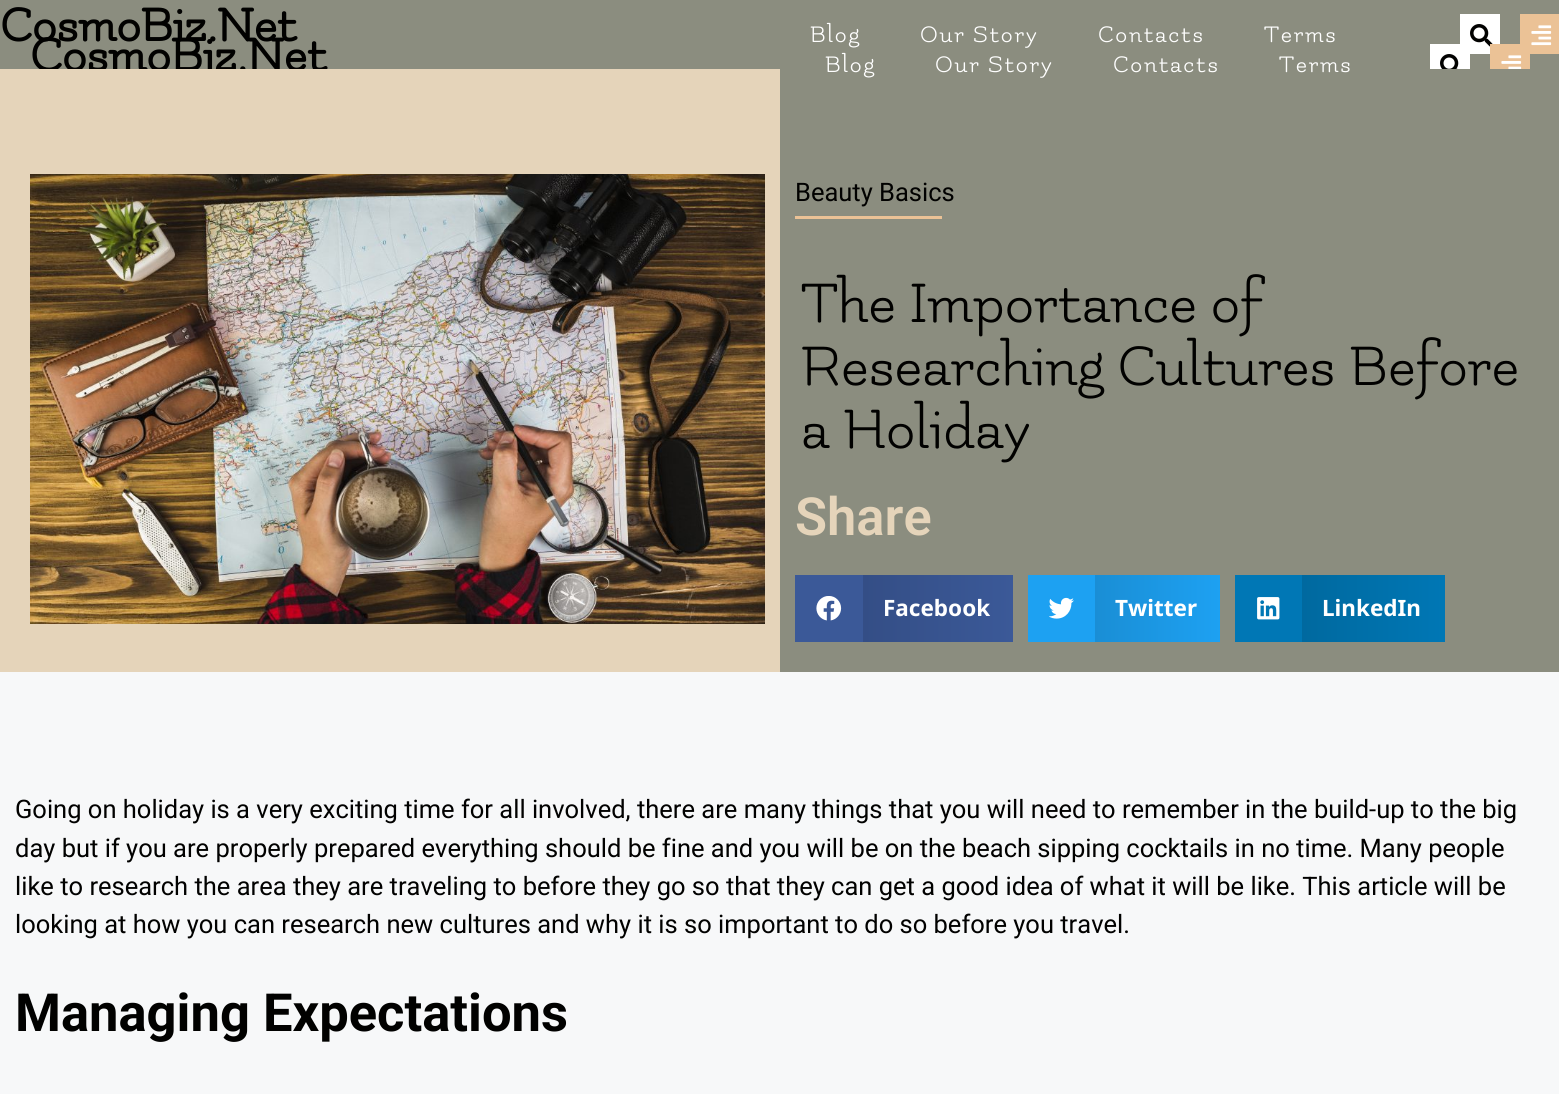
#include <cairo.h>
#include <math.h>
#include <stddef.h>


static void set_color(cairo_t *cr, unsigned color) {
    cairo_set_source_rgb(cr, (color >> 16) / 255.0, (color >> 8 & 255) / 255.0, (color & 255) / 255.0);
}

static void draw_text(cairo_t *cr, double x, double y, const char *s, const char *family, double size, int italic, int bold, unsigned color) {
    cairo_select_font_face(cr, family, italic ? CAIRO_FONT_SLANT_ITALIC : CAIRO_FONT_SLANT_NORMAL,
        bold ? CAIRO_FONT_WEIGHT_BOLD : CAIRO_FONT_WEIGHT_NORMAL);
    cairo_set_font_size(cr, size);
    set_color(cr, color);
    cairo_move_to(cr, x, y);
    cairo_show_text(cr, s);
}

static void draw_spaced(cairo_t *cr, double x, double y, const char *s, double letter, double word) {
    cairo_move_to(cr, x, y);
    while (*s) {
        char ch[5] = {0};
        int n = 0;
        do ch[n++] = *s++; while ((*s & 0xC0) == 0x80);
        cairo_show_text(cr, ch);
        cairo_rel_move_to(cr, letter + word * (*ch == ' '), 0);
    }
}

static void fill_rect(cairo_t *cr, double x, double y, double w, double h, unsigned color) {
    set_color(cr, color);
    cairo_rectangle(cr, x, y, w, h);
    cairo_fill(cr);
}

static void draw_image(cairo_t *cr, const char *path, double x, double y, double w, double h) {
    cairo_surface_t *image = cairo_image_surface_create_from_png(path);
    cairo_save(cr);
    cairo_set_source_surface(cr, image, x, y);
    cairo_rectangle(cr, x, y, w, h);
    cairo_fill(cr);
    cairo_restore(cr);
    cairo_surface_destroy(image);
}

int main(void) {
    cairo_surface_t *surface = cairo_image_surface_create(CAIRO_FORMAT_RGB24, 1559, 1094);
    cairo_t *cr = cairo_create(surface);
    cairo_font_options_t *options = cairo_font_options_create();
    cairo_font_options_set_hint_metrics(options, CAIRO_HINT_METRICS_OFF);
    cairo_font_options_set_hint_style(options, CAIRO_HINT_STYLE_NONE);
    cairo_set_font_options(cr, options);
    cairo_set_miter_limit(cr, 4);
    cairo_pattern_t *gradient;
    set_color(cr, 0xF7F8F9);
    cairo_paint(cr);
    fill_rect(cr, 0, 0, 1559, 69, 0x8B8D7F);
    draw_text(cr, 0, 41, "CosmoBiz.Net", "Flamenco", 52.5, 0, 1, 0x010100);
    cairo_select_font_face(cr, "Flamenco", CAIRO_FONT_SLANT_NORMAL, CAIRO_FONT_WEIGHT_NORMAL);
    cairo_set_font_size(cr, 25.5);
    set_color(cr, 0xFFFFFF);
    draw_spaced(cr, 810, 42, "Blog", 1.75, 0);
    draw_spaced(cr, 920, 42, "Our Story", 1.75, 0);
    draw_spaced(cr, 1098, 42, "Contacts", 1.75, 0);
    draw_spaced(cr, 1264, 42, "Terms", 1.75, 0);
    fill_rect(cr, 1460, 14, 40, 40, 0xFFFFFF);
    draw_image(cr, "assets/img1.png", 1470, 24, 23, 23);
    fill_rect(cr, 1520, 14, 39, 40, 0xEBC296);
    draw_image(cr, "assets/img2.png", 1531, 25, 21, 21);
    draw_text(cr, 30, 71, "CosmoBiz.Net", "Flamenco", 52.5, 0, 1, 0x010100);
    fill_rect(cr, 780, 69, 779, 603, 0x8B8D7F);
    cairo_select_font_face(cr, "Flamenco", CAIRO_FONT_SLANT_NORMAL, CAIRO_FONT_WEIGHT_NORMAL);
    cairo_set_font_size(cr, 25.5);
    set_color(cr, 0xFFFFFF);
    draw_spaced(cr, 825, 72, "Blog", 1.75, 0);
    draw_spaced(cr, 935, 72, "Our Story", 1.75, 0);
    draw_spaced(cr, 1113, 72, "Contacts", 1.75, 0);
    draw_spaced(cr, 1279, 72, "Terms", 1.75, 0);
    fill_rect(cr, 1430, 44, 40, 25, 0xFFFFFF);
    draw_image(cr, "assets/img3.png", 1440, 54, 19, 15);
    fill_rect(cr, 1490, 44, 40, 25, 0xEBC296);
    draw_image(cr, "assets/img4.png", 1501, 55, 21, 14);
    fill_rect(cr, 0, 69, 780, 603, 0xE5D4BA);
    draw_image(cr, "assets/img5.png", 30, 174, 735, 450);
    draw_text(cr, 795, 201, "Beauty Basics", "Roboto", 25.5, 0, 0, 0x010100);
    fill_rect(cr, 795, 216, 147, 3, 0xEBC296);
    draw_text(cr, 801, 322, "The Importance of", "Flamenco", 63, 0, 0, 0x010100);
    draw_text(cr, 801, 385, "Researching Cultures Before", "Flamenco", 63, 0, 0, 0x010100);
    draw_text(cr, 801, 448, "a Holiday", "Flamenco", 63, 0, 0, 0x010100);
    draw_text(cr, 795, 535, "Share", "Roboto SemiBold", 52.5, 0, 0, 0xE5D4BA);
    fill_rect(cr, 795, 575, 68, 67, 0x3B5998);
    draw_image(cr, "assets/img6.png", 816, 596, 26, 25);
    gradient = cairo_pattern_create_linear(863, 608, 1013, 608);
    cairo_pattern_add_color_stop_rgba(gradient, 0, 0.204, 0.306, 0.525, 1);
    cairo_pattern_add_color_stop_rgba(gradient, 1, 0.231, 0.349, 0.596, 1);
    cairo_set_source(cr, gradient);
    cairo_pattern_destroy(gradient);
    cairo_rectangle(cr, 863, 575, 150, 67);
    cairo_fill(cr);
    draw_text(cr, 883, 616, "Facebook", "Noto Sans", 22.5, 0, 1, 0xFFFFFF);
    fill_rect(cr, 1028, 575, 67, 67, 0x1DA1F2);
    draw_image(cr, "assets/img7.png", 1049, 597, 25, 22);
    gradient = cairo_pattern_create_linear(1095, 608, 1220, 608);
    cairo_pattern_add_color_stop_rgba(gradient, 0, 0.102, 0.557, 0.835, 1);
    cairo_pattern_add_color_stop_rgba(gradient, 1, 0.114, 0.631, 0.949, 1);
    cairo_set_source(cr, gradient);
    cairo_pattern_destroy(gradient);
    cairo_rectangle(cr, 1095, 575, 125, 67);
    cairo_fill(cr);
    draw_text(cr, 1115, 616, "Twitter", "Noto Sans", 22.5, 0, 1, 0xFFFFFF);
    fill_rect(cr, 1235, 575, 67, 67, 0x0077B5);
    draw_image(cr, "assets/img8.png", 1257, 597, 23, 23);
    gradient = cairo_pattern_create_linear(1302, 608, 1445, 608);
    cairo_pattern_add_color_stop_rgba(gradient, 0, 0, 0.412, 0.624, 1);
    cairo_pattern_add_color_stop_rgba(gradient, 1, 0, 0.467, 0.71, 1);
    cairo_set_source(cr, gradient);
    cairo_pattern_destroy(gradient);
    cairo_rectangle(cr, 1302, 575, 143, 67);
    cairo_fill(cr);
    draw_text(cr, 1322, 616, "LinkedIn", "Noto Sans", 22.5, 0, 1, 0xFFFFFF);
    draw_text(cr, 15, 818, "Going on holiday is a very exciting time for all involved, there are many things that you will need to remember in the build-up to the big", "Roboto", 25.5, 0, 0, 0x010100);
    draw_text(cr, 15, 857, "day but if you are properly prepared everything should be fine and you will be on the beach sipping cocktails in no time. Many people", "Roboto", 25.5, 0, 0, 0x010100);
    draw_text(cr, 15, 895, "like to research the area they are traveling to before they go so that they can get a good idea of what it will be like. This article will be", "Roboto", 25.5, 0, 0, 0x010100);
    draw_text(cr, 15, 933, "looking at how you can research new cultures and why it is so important to do so before you travel.", "Roboto", 25.5, 0, 0, 0x010100);
    draw_text(cr, 15, 1031, "Managing Expectations", "Roboto", 52.5, 0, 1, 0x010100);
    cairo_surface_write_to_png(surface, "output.png");
    cairo_font_options_destroy(options);
    cairo_destroy(cr);
    cairo_surface_destroy(surface);
    return 0;
}
